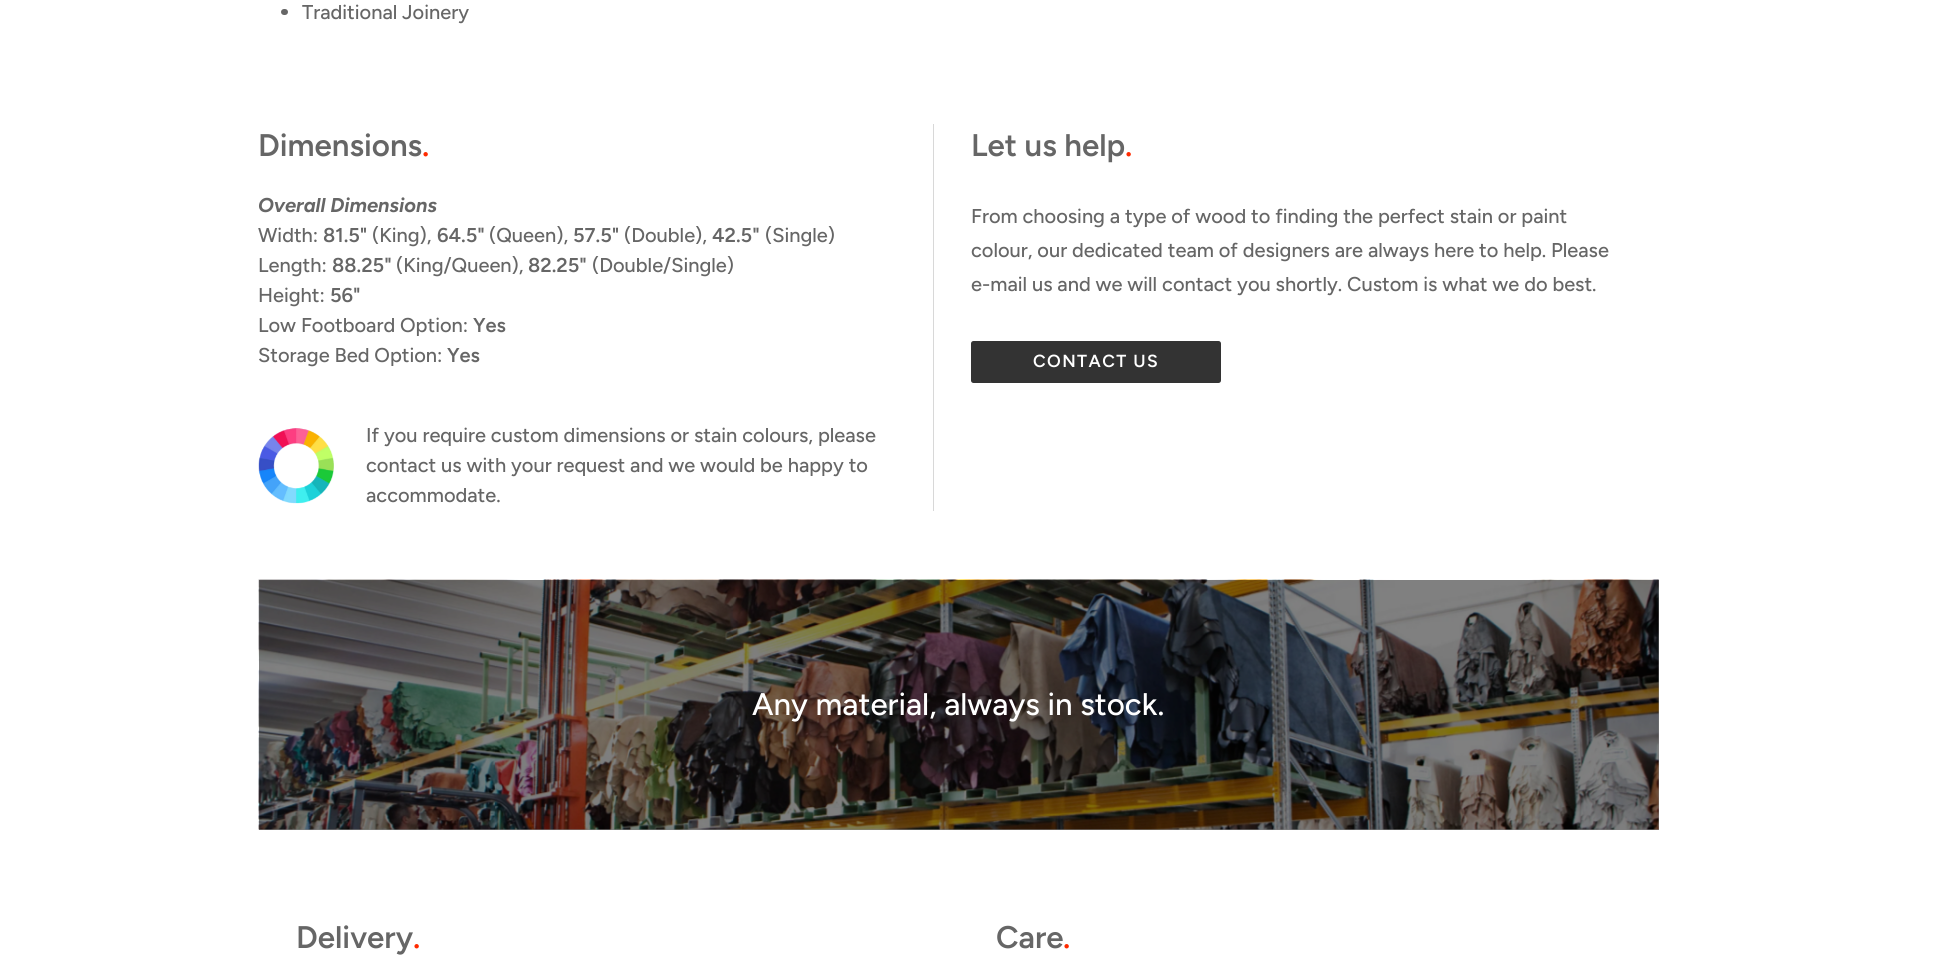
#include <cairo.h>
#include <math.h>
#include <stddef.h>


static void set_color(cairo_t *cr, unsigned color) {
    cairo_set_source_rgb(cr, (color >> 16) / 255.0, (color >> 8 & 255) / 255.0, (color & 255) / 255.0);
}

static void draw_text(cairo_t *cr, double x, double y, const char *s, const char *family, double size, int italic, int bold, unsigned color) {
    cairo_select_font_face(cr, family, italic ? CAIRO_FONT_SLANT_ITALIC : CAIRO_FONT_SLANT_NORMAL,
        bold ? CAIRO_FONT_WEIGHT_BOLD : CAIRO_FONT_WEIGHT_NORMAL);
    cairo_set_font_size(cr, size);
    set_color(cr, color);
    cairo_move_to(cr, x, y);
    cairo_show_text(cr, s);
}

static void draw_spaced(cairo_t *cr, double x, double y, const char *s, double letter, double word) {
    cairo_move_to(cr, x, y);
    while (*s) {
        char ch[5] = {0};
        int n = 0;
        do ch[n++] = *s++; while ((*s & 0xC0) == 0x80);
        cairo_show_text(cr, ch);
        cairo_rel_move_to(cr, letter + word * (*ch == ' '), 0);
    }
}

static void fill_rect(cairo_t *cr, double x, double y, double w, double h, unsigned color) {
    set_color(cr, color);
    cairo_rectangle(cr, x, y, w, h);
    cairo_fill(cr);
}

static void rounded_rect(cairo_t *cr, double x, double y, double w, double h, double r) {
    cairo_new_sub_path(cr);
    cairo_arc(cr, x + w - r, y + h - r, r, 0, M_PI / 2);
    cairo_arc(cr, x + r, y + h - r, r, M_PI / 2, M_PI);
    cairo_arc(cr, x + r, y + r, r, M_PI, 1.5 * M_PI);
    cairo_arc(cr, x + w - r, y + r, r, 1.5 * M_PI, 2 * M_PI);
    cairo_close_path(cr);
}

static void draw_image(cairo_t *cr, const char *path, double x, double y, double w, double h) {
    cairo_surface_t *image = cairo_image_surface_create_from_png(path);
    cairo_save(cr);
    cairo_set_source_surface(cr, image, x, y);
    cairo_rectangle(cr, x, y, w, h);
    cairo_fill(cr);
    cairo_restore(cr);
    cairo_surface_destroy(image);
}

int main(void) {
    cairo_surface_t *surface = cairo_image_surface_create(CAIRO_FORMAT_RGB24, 1953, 970);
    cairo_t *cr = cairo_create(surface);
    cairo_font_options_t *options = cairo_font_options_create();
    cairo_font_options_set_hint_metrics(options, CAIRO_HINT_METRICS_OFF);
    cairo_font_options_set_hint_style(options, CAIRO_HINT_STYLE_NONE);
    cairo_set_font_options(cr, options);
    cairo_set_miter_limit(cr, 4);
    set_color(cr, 0xFFFFFF);
    cairo_paint(cr);
    fill_rect(cr, 259, 580, 1400, 250, 0x808080);
    set_color(cr, 0x666666);
    rounded_rect(cr, 281, 9, 7, 6, 3);
    cairo_fill(cr);
    draw_text(cr, 302, 19, "Traditional Joinery", "Figtree Medium", 20, 0, 0, 0x666666);
    fill_rect(cr, 933, 124, 1, 387, 0xD8D8D8);
    draw_text(cr, 258, 156, "Dimensions", "Figtree SemiBold", 31.25, 0, 0, 0x666666);
    draw_text(cr, 422, 156, ".", "Figtree SemiBold", 31.25, 0, 0, 0xFF2A00);
    draw_text(cr, 258, 212, "Overall Dimensions", "Figtree", 20, 1, 1, 0x666666);
    draw_text(cr, 258, 242, "Width:", "Figtree Medium", 20, 0, 0, 0x666666);
    draw_text(cr, 323, 242, "81.5\"", "Figtree SemiBold", 20, 0, 0, 0x666666);
    draw_text(cr, 372, 242, "(King),", "Figtree Medium", 20, 0, 0, 0x666666);
    draw_text(cr, 437, 242, "64.5\"", "Figtree SemiBold", 20, 0, 0, 0x666666);
    draw_text(cr, 489, 242, "(Queen),", "Figtree Medium", 20, 0, 0, 0x666666);
    draw_text(cr, 573, 242, "57.5\"", "Figtree SemiBold", 20, 0, 0, 0x666666);
    draw_text(cr, 624, 242, "(Double),", "Figtree Medium", 20, 0, 0, 0x666666);
    draw_text(cr, 712, 242, "42.5\"", "Figtree SemiBold", 20, 0, 0, 0x666666);
    draw_text(cr, 765, 242, "(Single)", "Figtree Medium", 20, 0, 0, 0x666666);
    draw_text(cr, 258, 272, "Length:", "Figtree Medium", 20, 0, 0, 0x666666);
    draw_text(cr, 332, 272, "88.25\"", "Figtree SemiBold", 20, 0, 0, 0x666666);
    draw_text(cr, 396, 272, "(King/Queen),", "Figtree Medium", 20, 0, 0, 0x666666);
    draw_text(cr, 528, 272, "82.25\"", "Figtree SemiBold", 20, 0, 0, 0x666666);
    draw_text(cr, 592, 272, "(Double/Single)", "Figtree Medium", 20, 0, 0, 0x666666);
    draw_text(cr, 258, 302, "Height:", "Figtree Medium", 20, 0, 0, 0x666666);
    draw_text(cr, 330, 302, "56\"", "Figtree SemiBold", 20, 0, 0, 0x666666);
    draw_text(cr, 258, 332, "Low Footboard Option:", "Figtree Medium", 20, 0, 0, 0x666666);
    draw_text(cr, 473, 332, "Yes", "Figtree SemiBold", 20, 0, 0, 0x666666);
    draw_text(cr, 258, 362, "Storage Bed Option:", "Figtree Medium", 20, 0, 0, 0x666666);
    draw_text(cr, 447, 362, "Yes", "Figtree SemiBold", 20, 0, 0, 0x666666);
    draw_image(cr, "assets/img1.png", 258, 428, 76, 76);
    draw_text(cr, 366, 442, "If you require custom dimensions or stain colours, please", "Figtree Medium", 20, 0, 0, 0x666666);
    draw_text(cr, 366, 472, "contact us with your request and we would be happy to", "Figtree Medium", 20, 0, 0, 0x666666);
    draw_text(cr, 366, 502, "accommodate.", "Figtree Medium", 20, 0, 0, 0x666666);
    draw_text(cr, 971, 156, "Let us help", "Figtree SemiBold", 31.25, 0, 0, 0x666666);
    draw_text(cr, 1125, 156, ".", "Figtree SemiBold", 31.25, 0, 0, 0xFF2A00);
    draw_text(cr, 971, 223, "From choosing a type of wood to finding the perfect stain or paint", "Figtree Medium", 20, 0, 0, 0x666666);
    draw_text(cr, 971, 257, "colour, our dedicated team of designers are always here to help. Please", "Figtree Medium", 20, 0, 0, 0x666666);
    draw_text(cr, 971, 291, "e-mail us and we will contact you shortly. Custom is what we do best.", "Figtree Medium", 20, 0, 0, 0x666666);
    set_color(cr, 0x333333);
    rounded_rect(cr, 971, 341, 250, 42, 2.5);
    cairo_fill(cr);
    cairo_select_font_face(cr, "Figtree SemiBold", CAIRO_FONT_SLANT_NORMAL, CAIRO_FONT_WEIGHT_NORMAL);
    cairo_set_font_size(cr, 17.5);
    set_color(cr, 0xFFFFFF);
    draw_spaced(cr, 1033, 367, "CONTACT US", 1.4, 0);
    draw_image(cr, "assets/img2.png", 258, 579, 1401, 251);
    draw_text(cr, 752, 715, "Any material, always in stock.", "Figtree Medium", 31.25, 0, 0, 0xFFFFFF);
    draw_text(cr, 296, 948, "Delivery", "Figtree SemiBold", 31.25, 0, 0, 0x666666);
    draw_text(cr, 413, 948, ".", "Figtree SemiBold", 31.25, 0, 0, 0xFF2A00);
    draw_text(cr, 996, 948, "Care", "Figtree SemiBold", 31.25, 0, 0, 0x666666);
    draw_text(cr, 1063, 948, ".", "Figtree SemiBold", 31.25, 0, 0, 0xFF2A00);
    cairo_surface_write_to_png(surface, "output.png");
    cairo_font_options_destroy(options);
    cairo_destroy(cr);
    cairo_surface_destroy(surface);
    return 0;
}
